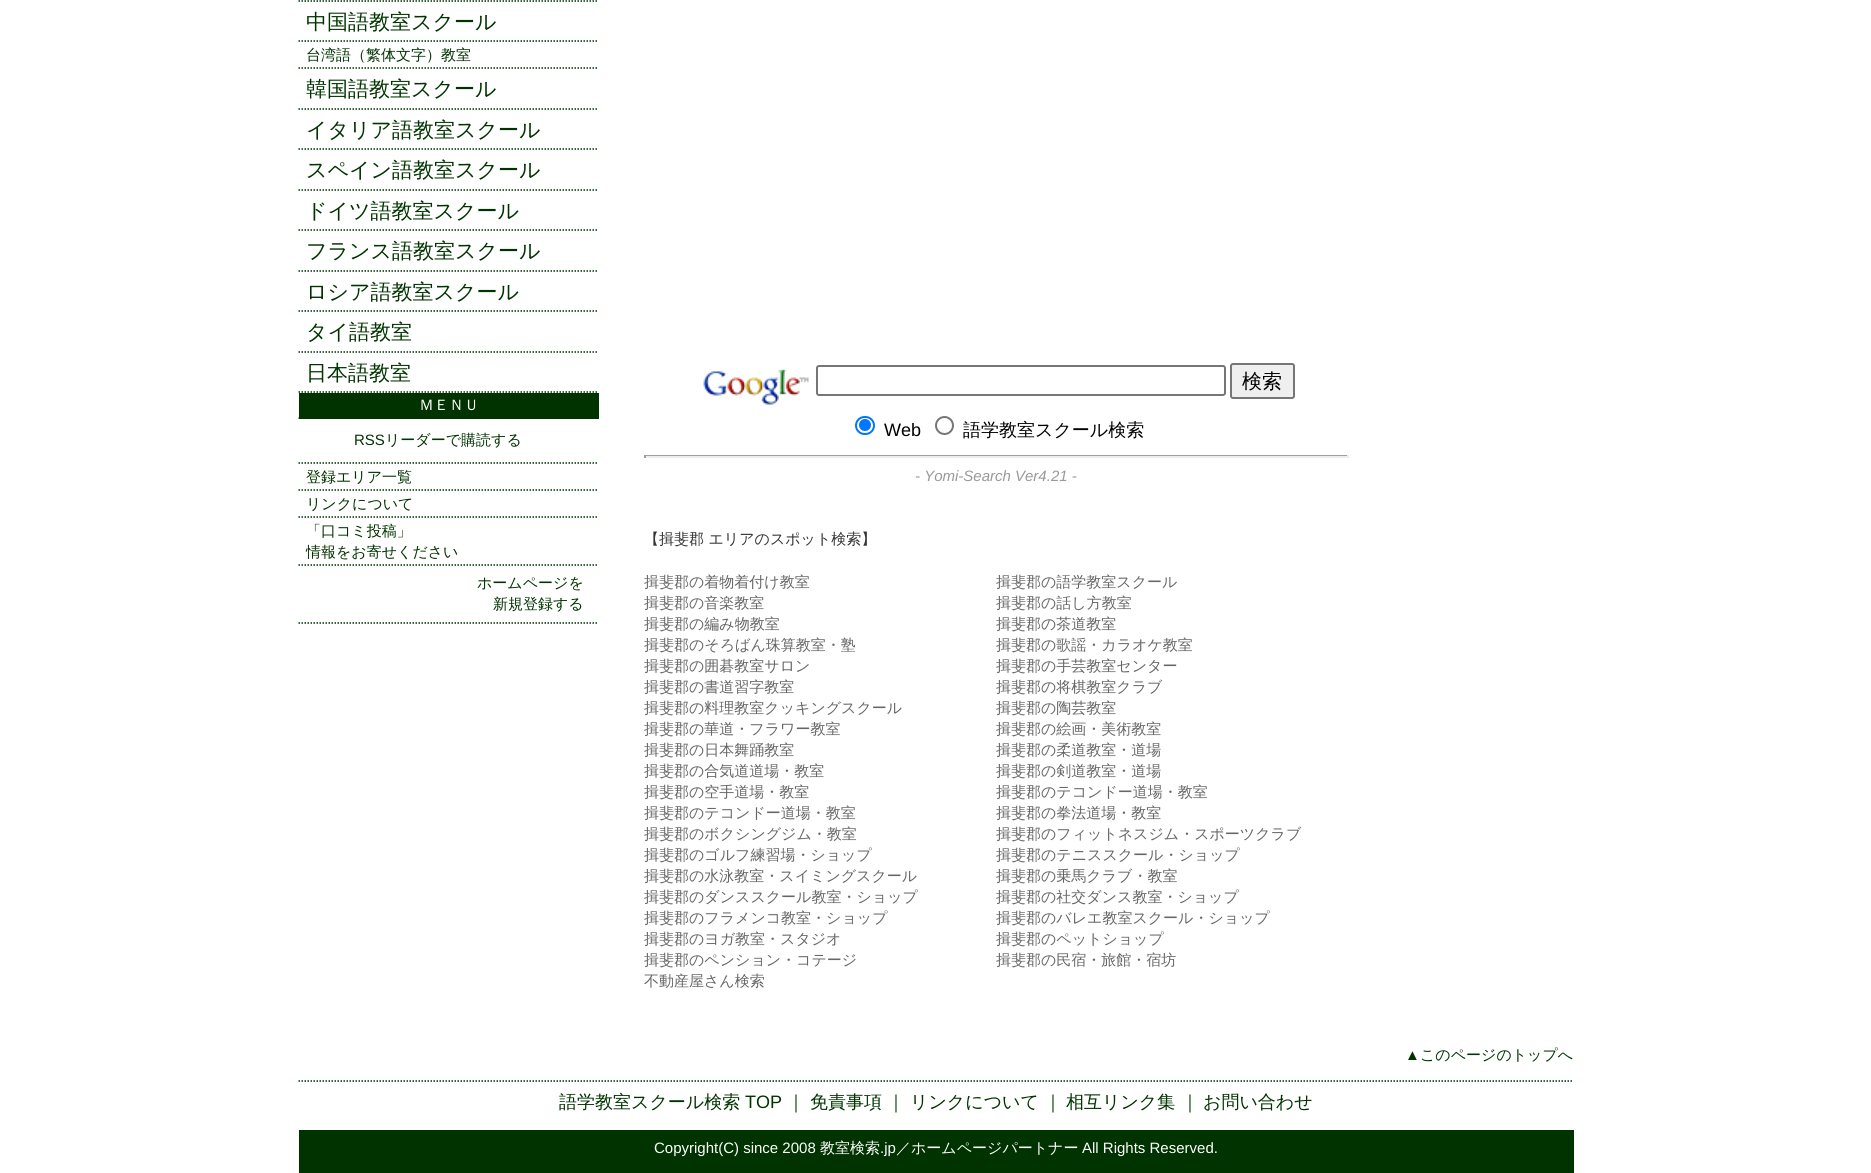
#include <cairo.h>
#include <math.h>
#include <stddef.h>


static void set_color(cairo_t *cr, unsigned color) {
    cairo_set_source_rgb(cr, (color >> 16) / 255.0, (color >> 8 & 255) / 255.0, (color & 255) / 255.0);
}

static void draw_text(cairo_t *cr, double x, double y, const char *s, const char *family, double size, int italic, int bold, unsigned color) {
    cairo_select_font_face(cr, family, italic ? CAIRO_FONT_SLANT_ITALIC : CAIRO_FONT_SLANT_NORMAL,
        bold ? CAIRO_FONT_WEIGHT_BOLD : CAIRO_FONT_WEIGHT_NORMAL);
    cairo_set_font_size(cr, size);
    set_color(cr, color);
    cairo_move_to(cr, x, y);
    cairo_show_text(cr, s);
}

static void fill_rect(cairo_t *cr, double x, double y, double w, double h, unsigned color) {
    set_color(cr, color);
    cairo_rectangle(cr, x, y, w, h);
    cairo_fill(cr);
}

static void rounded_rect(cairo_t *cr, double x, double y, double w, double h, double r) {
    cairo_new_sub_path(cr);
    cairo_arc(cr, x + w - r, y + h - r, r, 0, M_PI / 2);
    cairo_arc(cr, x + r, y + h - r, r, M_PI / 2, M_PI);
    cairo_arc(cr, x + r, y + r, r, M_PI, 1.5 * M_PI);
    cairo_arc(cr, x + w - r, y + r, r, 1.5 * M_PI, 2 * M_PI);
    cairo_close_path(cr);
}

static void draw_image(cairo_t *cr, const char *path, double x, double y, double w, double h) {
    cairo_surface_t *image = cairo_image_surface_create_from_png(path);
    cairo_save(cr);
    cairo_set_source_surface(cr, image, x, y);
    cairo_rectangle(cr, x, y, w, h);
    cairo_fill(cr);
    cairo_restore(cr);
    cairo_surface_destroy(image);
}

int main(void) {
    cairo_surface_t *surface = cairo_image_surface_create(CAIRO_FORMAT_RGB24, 1871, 1173);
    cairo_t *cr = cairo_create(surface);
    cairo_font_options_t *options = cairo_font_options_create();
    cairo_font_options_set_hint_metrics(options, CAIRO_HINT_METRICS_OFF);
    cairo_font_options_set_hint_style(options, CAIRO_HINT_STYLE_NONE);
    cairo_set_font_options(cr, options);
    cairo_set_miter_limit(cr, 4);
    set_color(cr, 0xFFFFFF);
    cairo_paint(cr);
    cairo_new_path(cr);
    cairo_move_to(cr, 298.5, 1);
    cairo_line_to(cr, 598.5, 1);
    set_color(cr, 0x003300);
    cairo_set_line_width(cr, 1.5);
    cairo_set_dash(cr, (double[]){1.5, 1.5}, 2, 0);
    cairo_stroke(cr);
    cairo_new_path(cr);
    cairo_move_to(cr, 298.5, 41);
    cairo_line_to(cr, 598.5, 41);
    cairo_stroke(cr);
    draw_text(cr, 306, 29, "中国語教室スクール", "WenQuanYi Zen Hei Medium", 21, 0, 0, 0x003300);
    cairo_new_path(cr);
    cairo_move_to(cr, 298.5, 68);
    cairo_line_to(cr, 598.5, 68);
    cairo_stroke(cr);
    draw_text(cr, 306, 60, "台湾語（繁体文字）教室", "WenQuanYi Zen Hei Medium", 15, 0, 0, 0x003300);
    cairo_new_path(cr);
    cairo_move_to(cr, 298.5, 109);
    cairo_line_to(cr, 598.5, 109);
    cairo_stroke(cr);
    draw_text(cr, 306, 96, "韓国語教室スクール", "WenQuanYi Zen Hei Medium", 21, 0, 0, 0x003300);
    cairo_new_path(cr);
    cairo_move_to(cr, 298.5, 149);
    cairo_line_to(cr, 598.5, 149);
    cairo_stroke(cr);
    draw_text(cr, 306, 137, "イタリア語教室スクール", "WenQuanYi Zen Hei Medium", 21, 0, 0, 0x003300);
    cairo_new_path(cr);
    cairo_move_to(cr, 298.5, 190);
    cairo_line_to(cr, 598.5, 190);
    cairo_stroke(cr);
    draw_text(cr, 306, 177, "スペイン語教室スクール", "WenQuanYi Zen Hei Medium", 21, 0, 0, 0x003300);
    cairo_new_path(cr);
    cairo_move_to(cr, 298.5, 230);
    cairo_line_to(cr, 598.5, 230);
    cairo_stroke(cr);
    draw_text(cr, 306, 218, "ドイツ語教室スクール", "WenQuanYi Zen Hei Medium", 21, 0, 0, 0x003300);
    cairo_new_path(cr);
    cairo_move_to(cr, 298.5, 271);
    cairo_line_to(cr, 598.5, 271);
    cairo_stroke(cr);
    draw_text(cr, 306, 258, "フランス語教室スクール", "WenQuanYi Zen Hei Medium", 21, 0, 0, 0x003300);
    cairo_new_path(cr);
    cairo_move_to(cr, 298.5, 311);
    cairo_line_to(cr, 598.5, 311);
    cairo_stroke(cr);
    draw_text(cr, 306, 299, "ロシア語教室スクール", "WenQuanYi Zen Hei Medium", 21, 0, 0, 0x003300);
    cairo_new_path(cr);
    cairo_move_to(cr, 298.5, 352);
    cairo_line_to(cr, 598.5, 352);
    cairo_stroke(cr);
    draw_text(cr, 306, 339, "タイ語教室", "WenQuanYi Zen Hei Medium", 21, 0, 0, 0x003300);
    cairo_new_path(cr);
    cairo_move_to(cr, 298.5, 392);
    cairo_line_to(cr, 598.5, 392);
    cairo_stroke(cr);
    draw_text(cr, 306, 380, "日本語教室", "WenQuanYi Zen Hei Medium", 21, 0, 0, 0x003300);
    fill_rect(cr, 299, 393, 300, 26, 0x003300);
    cairo_new_path(cr);
    cairo_move_to(cr, 298.5, 418);
    cairo_line_to(cr, 598.5, 418);
    cairo_stroke(cr);
    draw_text(cr, 419, 410, "ＭＥＮＵ", "WenQuanYi Zen Hei Medium", 15, 0, 0, 0xFFFFFF);
    cairo_new_path(cr);
    cairo_move_to(cr, 298.5, 463);
    cairo_line_to(cr, 598.5, 463);
    set_color(cr, 0x003300);
    cairo_stroke(cr);
    draw_text(cr, 354, 445, "RSS", "Liberation Sans", 15, 0, 0, 0x003300);
    draw_text(cr, 385, 445, "リーダーで購読する", "WenQuanYi Zen Hei Medium", 15, 0, 0, 0x003300);
    cairo_new_path(cr);
    cairo_move_to(cr, 298.5, 490);
    cairo_line_to(cr, 598.5, 490);
    cairo_stroke(cr);
    draw_text(cr, 306, 482, "登録エリア一覧", "WenQuanYi Zen Hei Medium", 15, 0, 0, 0x003300);
    cairo_new_path(cr);
    cairo_move_to(cr, 298.5, 517);
    cairo_line_to(cr, 598.5, 517);
    cairo_stroke(cr);
    draw_text(cr, 306, 509, "リンクについて", "WenQuanYi Zen Hei Medium", 15, 0, 0, 0x003300);
    cairo_new_path(cr);
    cairo_move_to(cr, 298.5, 565);
    cairo_line_to(cr, 598.5, 565);
    cairo_stroke(cr);
    draw_text(cr, 306, 536, "「口コミ投稿」", "WenQuanYi Zen Hei Medium", 15, 0, 0, 0x003300);
    draw_text(cr, 306, 557, "情報をお寄せください", "WenQuanYi Zen Hei Medium", 15, 0, 0, 0x003300);
    cairo_new_path(cr);
    cairo_move_to(cr, 298.5, 623);
    cairo_line_to(cr, 598.5, 623);
    cairo_stroke(cr);
    draw_text(cr, 477, 588, "ホームページを", "WenQuanYi Zen Hei Medium", 15, 0, 0, 0x003300);
    draw_text(cr, 493, 609, "新規登録する", "WenQuanYi Zen Hei Medium", 15, 0, 0, 0x003300);
    draw_image(cr, "assets/img1.png", 703, 369, 106, 36);
    rounded_rect(cr, 817, 366, 408, 29, 2);
    set_color(cr, 0x767676);
    cairo_set_line_width(cr, 2);
    cairo_set_dash(cr, NULL, 0, 0);
    cairo_stroke(cr);
    set_color(cr, 0xEFEFEF);
    rounded_rect(cr, 1231, 364, 63, 34, 2);
    cairo_fill_preserve(cr);
    set_color(cr, 0x767676);
    cairo_stroke(cr);
    draw_text(cr, 1242, 388, "検索", "WenQuanYi Zen Hei Medium", 20, 0, 0, 0x000000);
    rounded_rect(cr, 856, 417, 18, 17, 8.5);
    set_color(cr, 0x0075FF);
    cairo_stroke(cr);
    cairo_arc(cr, 865, 425, 6, 0, 2 * M_PI);
    cairo_fill(cr);
    draw_text(cr, 884, 436, "Web", "Liberation Sans", 18, 0, 0, 0x000000);
    cairo_new_path(cr);
    cairo_arc(cr, 944.5, 425.5, 8.5, 0, 2 * M_PI);
    set_color(cr, 0x767676);
    cairo_stroke(cr);
    draw_text(cr, 963, 436, "語学教室スクール検索", "WenQuanYi Zen Hei Medium", 18, 0, 0, 0x000000);
    fill_rect(cr, 644, 455, 705, 1, 0x9F9F9F);
    fill_rect(cr, 1347, 455, 2, 3, 0xEEEEEE);
    fill_rect(cr, 644, 456, 705, 2, 0xEEEEEE);
    fill_rect(cr, 644, 455, 2, 3, 0x9F9F9F);
    draw_text(cr, 915, 481, "- Yomi-Search Ver4.21 -", "Liberation Sans", 15, 1, 0, 0x999999);
    draw_text(cr, 644, 544, "【揖斐郡 エリアのスポット検索】", "WenQuanYi Zen Hei Medium", 15, 0, 0, 0x333333);
    draw_text(cr, 644, 587, "揖斐郡の着物着付け教室", "WenQuanYi Zen Hei Medium", 15, 0, 0, 0x666666);
    draw_text(cr, 996, 587, "揖斐郡の語学教室スクール", "WenQuanYi Zen Hei Medium", 15, 0, 0, 0x666666);
    draw_text(cr, 644, 608, "揖斐郡の音楽教室", "WenQuanYi Zen Hei Medium", 15, 0, 0, 0x666666);
    draw_text(cr, 996, 608, "揖斐郡の話し方教室", "WenQuanYi Zen Hei Medium", 15, 0, 0, 0x666666);
    draw_text(cr, 644, 629, "揖斐郡の編み物教室", "WenQuanYi Zen Hei Medium", 15, 0, 0, 0x666666);
    draw_text(cr, 996, 629, "揖斐郡の茶道教室", "WenQuanYi Zen Hei Medium", 15, 0, 0, 0x666666);
    draw_text(cr, 644, 650, "揖斐郡のそろばん珠算教室・塾", "WenQuanYi Zen Hei Medium", 15, 0, 0, 0x666666);
    draw_text(cr, 996, 650, "揖斐郡の歌謡・カラオケ教室", "WenQuanYi Zen Hei Medium", 15, 0, 0, 0x666666);
    draw_text(cr, 644, 671, "揖斐郡の囲碁教室サロン", "WenQuanYi Zen Hei Medium", 15, 0, 0, 0x666666);
    draw_text(cr, 996, 671, "揖斐郡の手芸教室センター", "WenQuanYi Zen Hei Medium", 15, 0, 0, 0x666666);
    draw_text(cr, 644, 692, "揖斐郡の書道習字教室", "WenQuanYi Zen Hei Medium", 15, 0, 0, 0x666666);
    draw_text(cr, 996, 692, "揖斐郡の将棋教室クラブ", "WenQuanYi Zen Hei Medium", 15, 0, 0, 0x666666);
    draw_text(cr, 644, 713, "揖斐郡の料理教室クッキングスクール", "WenQuanYi Zen Hei Medium", 15, 0, 0, 0x666666);
    draw_text(cr, 996, 713, "揖斐郡の陶芸教室", "WenQuanYi Zen Hei Medium", 15, 0, 0, 0x666666);
    draw_text(cr, 644, 734, "揖斐郡の華道・フラワー教室", "WenQuanYi Zen Hei Medium", 15, 0, 0, 0x666666);
    draw_text(cr, 996, 734, "揖斐郡の絵画・美術教室", "WenQuanYi Zen Hei Medium", 15, 0, 0, 0x666666);
    draw_text(cr, 644, 755, "揖斐郡の日本舞踊教室", "WenQuanYi Zen Hei Medium", 15, 0, 0, 0x666666);
    draw_text(cr, 996, 755, "揖斐郡の柔道教室・道場", "WenQuanYi Zen Hei Medium", 15, 0, 0, 0x666666);
    draw_text(cr, 644, 776, "揖斐郡の合気道道場・教室", "WenQuanYi Zen Hei Medium", 15, 0, 0, 0x666666);
    draw_text(cr, 996, 776, "揖斐郡の剣道教室・道場", "WenQuanYi Zen Hei Medium", 15, 0, 0, 0x666666);
    draw_text(cr, 644, 797, "揖斐郡の空手道場・教室", "WenQuanYi Zen Hei Medium", 15, 0, 0, 0x666666);
    draw_text(cr, 996, 797, "揖斐郡のテコンドー道場・教室", "WenQuanYi Zen Hei Medium", 15, 0, 0, 0x666666);
    draw_text(cr, 644, 818, "揖斐郡のテコンドー道場・教室", "WenQuanYi Zen Hei Medium", 15, 0, 0, 0x666666);
    draw_text(cr, 996, 818, "揖斐郡の拳法道場・教室", "WenQuanYi Zen Hei Medium", 15, 0, 0, 0x666666);
    draw_text(cr, 644, 839, "揖斐郡のボクシングジム・教室", "WenQuanYi Zen Hei Medium", 15, 0, 0, 0x666666);
    draw_text(cr, 996, 839, "揖斐郡のフィットネスジム・スポーツクラブ", "WenQuanYi Zen Hei Medium", 15, 0, 0, 0x666666);
    draw_text(cr, 644, 860, "揖斐郡のゴルフ練習場・ショップ", "WenQuanYi Zen Hei Medium", 15, 0, 0, 0x666666);
    draw_text(cr, 996, 860, "揖斐郡のテニススクール・ショップ", "WenQuanYi Zen Hei Medium", 15, 0, 0, 0x666666);
    draw_text(cr, 644, 881, "揖斐郡の水泳教室・スイミングスクール", "WenQuanYi Zen Hei Medium", 15, 0, 0, 0x666666);
    draw_text(cr, 996, 881, "揖斐郡の乗馬クラブ・教室", "WenQuanYi Zen Hei Medium", 15, 0, 0, 0x666666);
    draw_text(cr, 644, 902, "揖斐郡のダンススクール教室・ショップ", "WenQuanYi Zen Hei Medium", 15, 0, 0, 0x666666);
    draw_text(cr, 996, 902, "揖斐郡の社交ダンス教室・ショップ", "WenQuanYi Zen Hei Medium", 15, 0, 0, 0x666666);
    draw_text(cr, 644, 923, "揖斐郡のフラメンコ教室・ショップ", "WenQuanYi Zen Hei Medium", 15, 0, 0, 0x666666);
    draw_text(cr, 996, 923, "揖斐郡のバレエ教室スクール・ショップ", "WenQuanYi Zen Hei Medium", 15, 0, 0, 0x666666);
    draw_text(cr, 644, 944, "揖斐郡のヨガ教室・スタジオ", "WenQuanYi Zen Hei Medium", 15, 0, 0, 0x666666);
    draw_text(cr, 996, 944, "揖斐郡のペットショップ", "WenQuanYi Zen Hei Medium", 15, 0, 0, 0x666666);
    draw_text(cr, 644, 965, "揖斐郡のペンション・コテージ", "WenQuanYi Zen Hei Medium", 15, 0, 0, 0x666666);
    draw_text(cr, 996, 965, "揖斐郡の民宿・旅館・宿坊", "WenQuanYi Zen Hei Medium", 15, 0, 0, 0x666666);
    draw_text(cr, 644, 986, "不動産屋さん検索", "WenQuanYi Zen Hei Medium", 15, 0, 0, 0x666666);
    cairo_new_path(cr);
    cairo_move_to(cr, 298.5, 1081);
    cairo_line_to(cr, 1573.5, 1081);
    set_color(cr, 0x003300);
    cairo_set_line_width(cr, 1.5);
    cairo_set_dash(cr, (double[]){1.5, 1.5}, 2, 0);
    cairo_stroke(cr);
    draw_text(cr, 1405, 1060, "▲", "Liberation Sans", 15, 0, 0, 0x003300);
    draw_text(cr, 1420, 1060, "このページのトップへ", "WenQuanYi Zen Hei Medium", 15, 0, 0, 0x003300);
    draw_text(cr, 559, 1108, "語学教室スクール検索", "WenQuanYi Zen Hei Medium", 18, 0, 0, 0x003300);
    draw_text(cr, 745, 1108, "TOP", "Liberation Sans", 18, 0, 0, 0x003300);
    draw_text(cr, 787, 1108, "｜", "WenQuanYi Zen Hei Medium", 18, 0, 0, 0x003300);
    draw_text(cr, 810, 1108, "免責事項", "WenQuanYi Zen Hei Medium", 18, 0, 0, 0x003300);
    draw_text(cr, 887, 1108, "｜", "WenQuanYi Zen Hei Medium", 18, 0, 0, 0x003300);
    draw_text(cr, 910, 1108, "リンクについて", "WenQuanYi Zen Hei Medium", 18, 0, 0, 0x003300);
    draw_text(cr, 1044, 1108, "｜", "WenQuanYi Zen Hei Medium", 18, 0, 0, 0x003300);
    draw_text(cr, 1066, 1108, "相互リンク集", "WenQuanYi Zen Hei Medium", 18, 0, 0, 0x003300);
    draw_text(cr, 1181, 1108, "｜", "WenQuanYi Zen Hei Medium", 18, 0, 0, 0x003300);
    draw_text(cr, 1203, 1108, "お問い合わせ", "WenQuanYi Zen Hei Medium", 18, 0, 0, 0x003300);
    fill_rect(cr, 299, 1130, 1275, 43, 0x003300);
    draw_text(cr, 654, 1153, "Copyright(C) since 2008", "Liberation Sans", 15, 0, 0, 0xFFFFFF);
    draw_text(cr, 820, 1153, "教室検索", "WenQuanYi Zen Hei Medium", 15, 0, 0, 0xFFFFFF);
    draw_text(cr, 880, 1153, ".jp", "Liberation Sans", 15, 0, 0, 0xFFFFFF);
    draw_text(cr, 896, 1153, "／ホームページパートナー", "WenQuanYi Zen Hei Medium", 15, 0, 0, 0xFFFFFF);
    draw_text(cr, 1082, 1153, "All Rights Reserved.", "Liberation Sans", 15, 0, 0, 0xFFFFFF);
    cairo_surface_write_to_png(surface, "output.png");
    cairo_font_options_destroy(options);
    cairo_destroy(cr);
    cairo_surface_destroy(surface);
    return 0;
}
